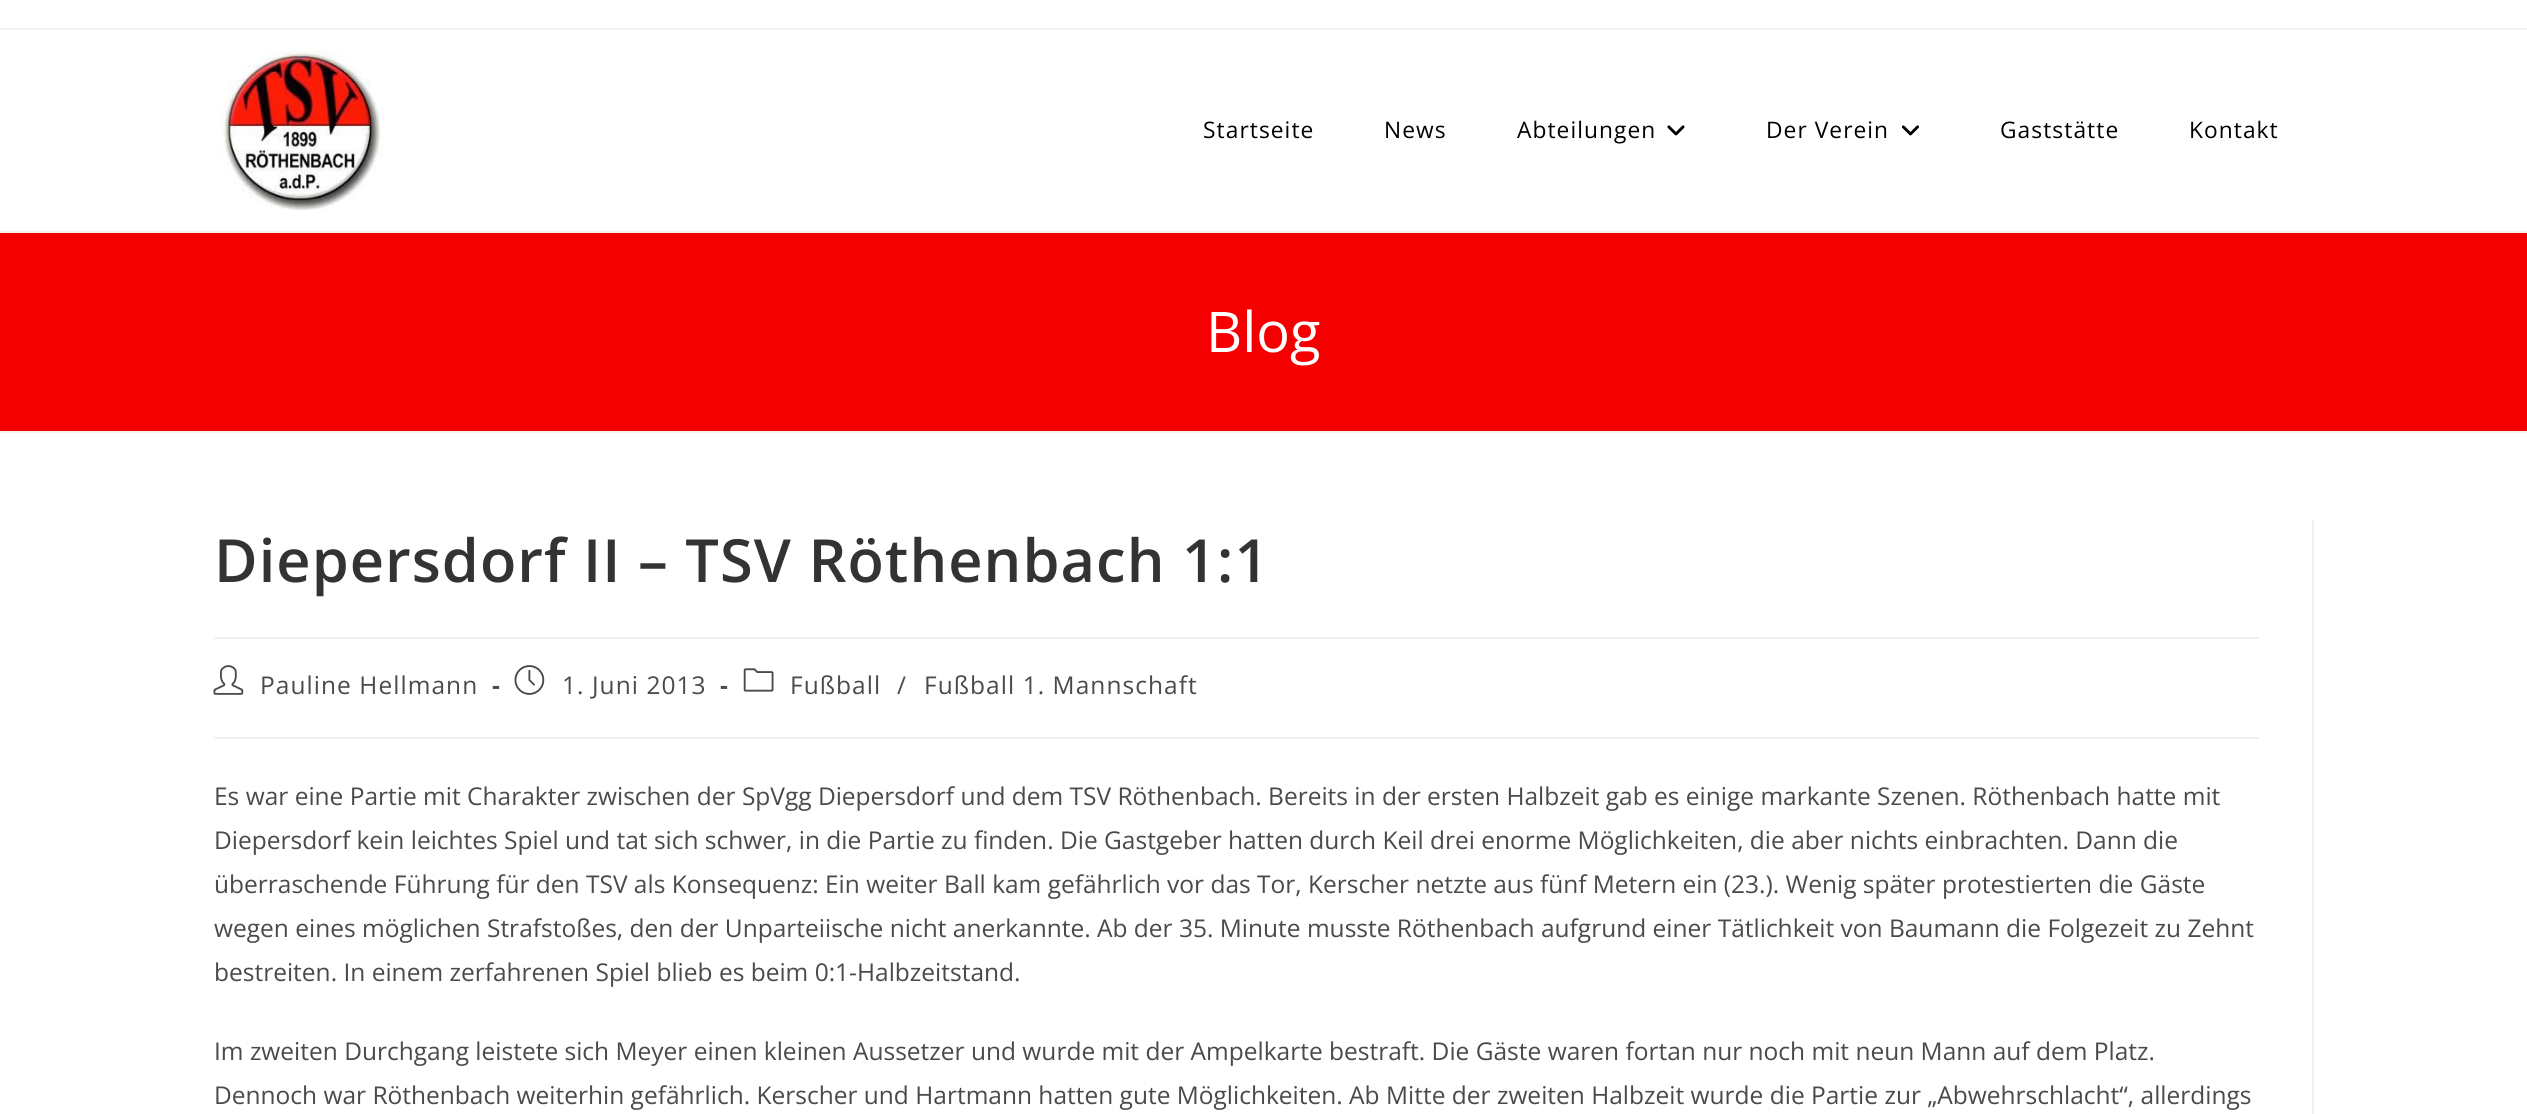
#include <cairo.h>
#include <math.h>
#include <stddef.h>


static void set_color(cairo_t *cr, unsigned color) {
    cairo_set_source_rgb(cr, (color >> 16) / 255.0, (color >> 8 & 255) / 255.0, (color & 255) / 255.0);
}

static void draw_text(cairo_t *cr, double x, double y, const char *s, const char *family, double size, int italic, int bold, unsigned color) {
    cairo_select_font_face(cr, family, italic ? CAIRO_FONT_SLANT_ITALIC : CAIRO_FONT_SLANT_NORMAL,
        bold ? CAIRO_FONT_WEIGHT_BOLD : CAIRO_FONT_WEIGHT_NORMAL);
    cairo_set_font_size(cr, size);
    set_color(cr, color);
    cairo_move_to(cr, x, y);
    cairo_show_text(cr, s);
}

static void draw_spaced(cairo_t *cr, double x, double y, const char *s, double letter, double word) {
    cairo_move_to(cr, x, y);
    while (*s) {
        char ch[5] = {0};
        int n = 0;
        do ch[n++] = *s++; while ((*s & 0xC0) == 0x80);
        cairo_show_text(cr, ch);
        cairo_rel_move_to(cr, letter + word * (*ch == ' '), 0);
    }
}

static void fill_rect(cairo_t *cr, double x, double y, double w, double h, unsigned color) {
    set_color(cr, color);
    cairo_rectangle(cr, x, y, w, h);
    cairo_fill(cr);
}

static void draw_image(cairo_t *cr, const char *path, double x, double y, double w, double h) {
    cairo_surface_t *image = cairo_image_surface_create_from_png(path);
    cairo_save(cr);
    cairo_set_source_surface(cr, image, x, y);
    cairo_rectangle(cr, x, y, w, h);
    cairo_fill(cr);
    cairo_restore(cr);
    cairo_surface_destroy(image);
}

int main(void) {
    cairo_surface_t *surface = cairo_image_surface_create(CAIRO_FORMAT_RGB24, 2527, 1114);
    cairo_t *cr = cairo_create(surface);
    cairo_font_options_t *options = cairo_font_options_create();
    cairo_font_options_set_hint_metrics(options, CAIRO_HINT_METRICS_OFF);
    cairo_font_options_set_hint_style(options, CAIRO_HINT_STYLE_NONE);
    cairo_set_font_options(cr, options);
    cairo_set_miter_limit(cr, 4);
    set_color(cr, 0xFFFFFF);
    cairo_paint(cr);
    fill_rect(cr, 0, 28, 2527, 2, 0xF1F1F1);
    fill_rect(cr, 0, 231, 2527, 2, 0xF1F1F1);
    draw_image(cr, "assets/img1.png", 221, 50, 163, 160);
    cairo_select_font_face(cr, "Open Sans", CAIRO_FONT_SLANT_NORMAL, CAIRO_FONT_WEIGHT_NORMAL);
    cairo_set_font_size(cr, 22.75);
    set_color(cr, 0x000000);
    draw_spaced(cr, 1203, 138, "Startseite", 1.05, 0);
    draw_spaced(cr, 1384, 138, "News", 1.05, 0);
    draw_spaced(cr, 1517, 138, "Abteilungen", 1.05, 0);
    draw_image(cr, "assets/img2.png", 1667, 125, 18, 11);
    draw_spaced(cr, 1766, 138, "Der Verein", 1.05, 0);
    draw_image(cr, "assets/img3.png", 1901, 125, 18, 11);
    draw_spaced(cr, 2000, 138, "Gaststätte", 1.05, 0);
    draw_spaced(cr, 2189, 138, "Kontakt", 1.05, 0);
    fill_rect(cr, 0, 233, 2527, 198, 0xF40000);
    fill_rect(cr, 0, 431, 2527, 2, 0xF1F1F1);
    draw_text(cr, 1206, 352, "Blog", "Open Sans", 56, 0, 0, 0xFFFFFF);
    fill_rect(cr, 2312, 520, 2, 594, 0xF1F1F1);
    fill_rect(cr, 214, 637, 2045, 2, 0xF1F1F1);
    cairo_select_font_face(cr, "Open Sans SemiBold", CAIRO_FONT_SLANT_NORMAL, CAIRO_FONT_WEIGHT_NORMAL);
    cairo_set_font_size(cr, 59.5);
    set_color(cr, 0x333333);
    draw_spaced(cr, 214, 582, "Diepersdorf II – TSV Röthenbach 1:1", 1.05, 0);
    fill_rect(cr, 214, 737, 2045, 2, 0xF1F1F1);
    draw_image(cr, "assets/img4.png", 213, 665, 31, 30);
    cairo_select_font_face(cr, "Open Sans", CAIRO_FONT_SLANT_NORMAL, CAIRO_FONT_WEIGHT_NORMAL);
    cairo_set_font_size(cr, 24.5);
    set_color(cr, 0x4A4A4A);
    draw_spaced(cr, 260, 694, "Pauline Hellmann", 1.05, 0);
    cairo_select_font_face(cr, "Open Sans", CAIRO_FONT_SLANT_NORMAL, CAIRO_FONT_WEIGHT_BOLD);
    draw_spaced(cr, 492, 694, "-", 1.05, 0);
    draw_image(cr, "assets/img5.png", 514, 665, 31, 30);
    cairo_select_font_face(cr, "Open Sans", CAIRO_FONT_SLANT_NORMAL, CAIRO_FONT_WEIGHT_NORMAL);
    draw_spaced(cr, 562, 694, "1. Juni 2013", 1.05, 0);
    cairo_select_font_face(cr, "Open Sans", CAIRO_FONT_SLANT_NORMAL, CAIRO_FONT_WEIGHT_BOLD);
    draw_spaced(cr, 720, 694, "-", 1.05, 0);
    draw_image(cr, "assets/img6.png", 743, 668, 31, 24);
    cairo_select_font_face(cr, "Open Sans", CAIRO_FONT_SLANT_NORMAL, CAIRO_FONT_WEIGHT_NORMAL);
    draw_spaced(cr, 790, 694, "Fußball", 1.05, 0);
    draw_spaced(cr, 897, 694, "/", 1.05, 0);
    draw_spaced(cr, 924, 694, "Fußball 1. Mannschaft", 1.05, 0);
    draw_text(cr, 214, 805, "Es war eine Partie mit Charakter zwischen der SpVgg Diepersdorf und dem TSV Röthenbach. Bereits in der ersten Halbzeit gab es einige markante Szenen. Röthenbach hatte mit", "Open Sans", 24.5, 0, 0, 0x4A4A4A);
    draw_text(cr, 214, 849, "Diepersdorf kein leichtes Spiel und tat sich schwer, in die Partie zu finden. Die Gastgeber hatten durch Keil drei enorme Möglichkeiten, die aber nichts einbrachten. Dann die", "Open Sans", 24.5, 0, 0, 0x4A4A4A);
    draw_text(cr, 214, 893, "überraschende Führung für den TSV als Konsequenz: Ein weiter Ball kam gefährlich vor das Tor, Kerscher netzte aus fünf Metern ein (23.). Wenig später protestierten die Gäste", "Open Sans", 24.5, 0, 0, 0x4A4A4A);
    draw_text(cr, 214, 937, "wegen eines möglichen Strafstoßes, den der Unparteiische nicht anerkannte. Ab der 35. Minute musste Röthenbach aufgrund einer Tätlichkeit von Baumann die Folgezeit zu Zehnt", "Open Sans", 24.5, 0, 0, 0x4A4A4A);
    draw_text(cr, 214, 981, "bestreiten. In einem zerfahrenen Spiel blieb es beim 0:1-Halbzeitstand.", "Open Sans", 24.5, 0, 0, 0x4A4A4A);
    draw_text(cr, 214, 1060, "Im zweiten Durchgang leistete sich Meyer einen kleinen Aussetzer und wurde mit der Ampelkarte bestraft. Die Gäste waren fortan nur noch mit neun Mann auf dem Platz.", "Open Sans", 24.5, 0, 0, 0x4A4A4A);
    draw_text(cr, 214, 1104, "Dennoch war Röthenbach weiterhin gefährlich. Kerscher und Hartmann hatten gute Möglichkeiten. Ab Mitte der zweiten Halbzeit wurde die Partie zur „Abwehrschlacht“, allerdings", "Open Sans", 24.5, 0, 0, 0x4A4A4A);
    cairo_surface_write_to_png(surface, "output.png");
    cairo_font_options_destroy(options);
    cairo_destroy(cr);
    cairo_surface_destroy(surface);
    return 0;
}
